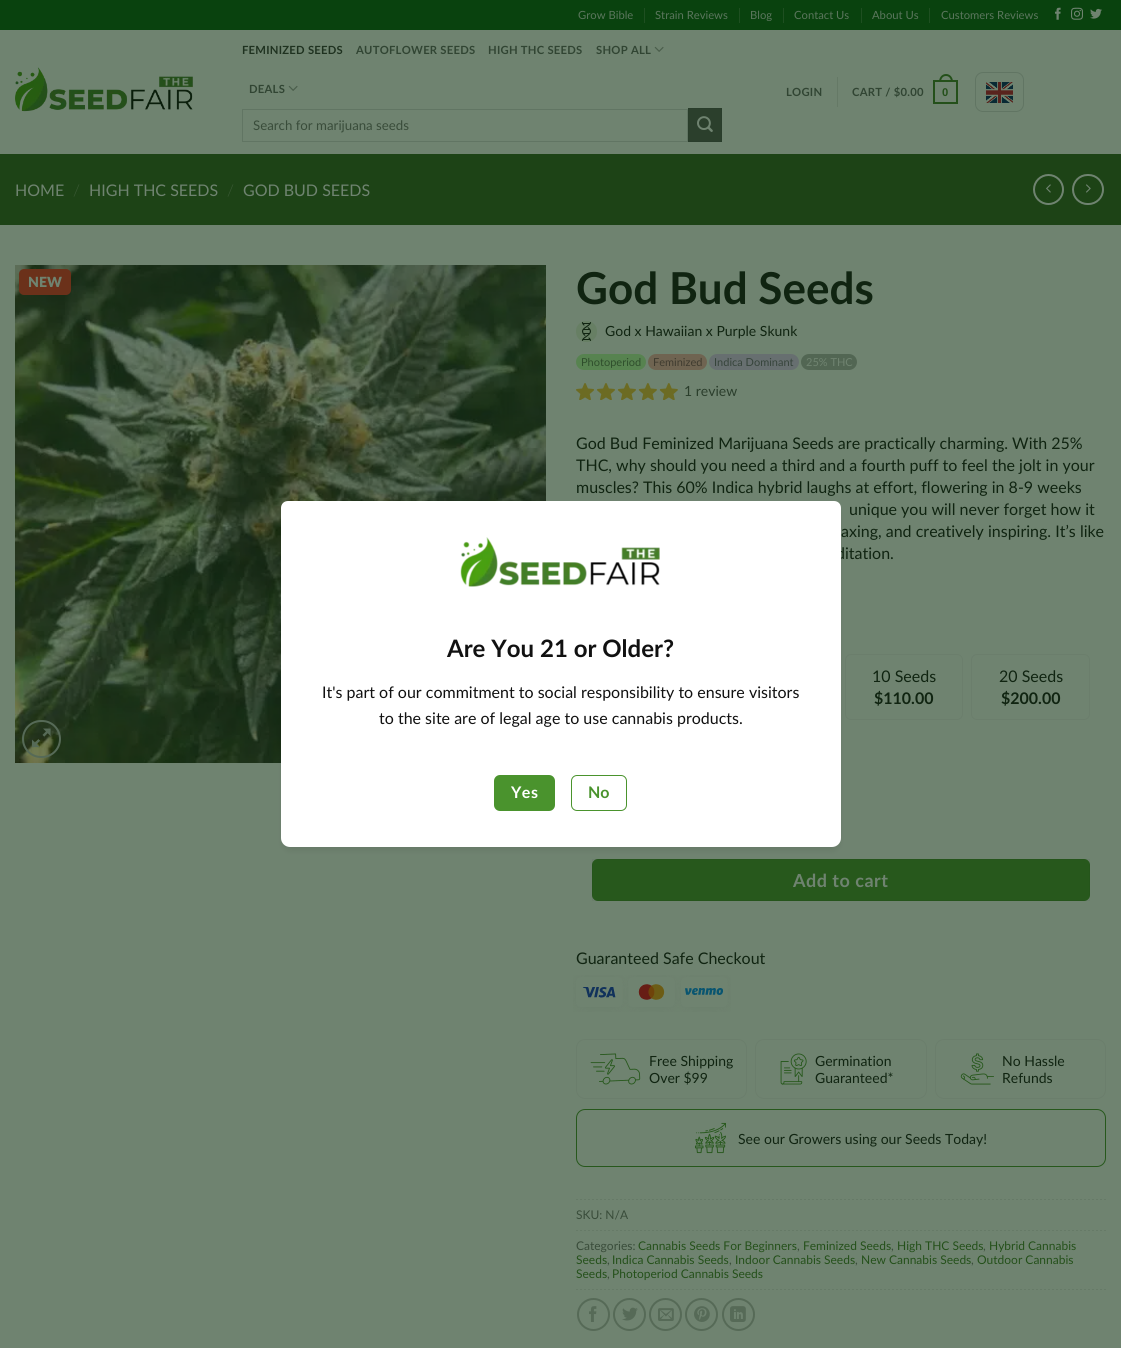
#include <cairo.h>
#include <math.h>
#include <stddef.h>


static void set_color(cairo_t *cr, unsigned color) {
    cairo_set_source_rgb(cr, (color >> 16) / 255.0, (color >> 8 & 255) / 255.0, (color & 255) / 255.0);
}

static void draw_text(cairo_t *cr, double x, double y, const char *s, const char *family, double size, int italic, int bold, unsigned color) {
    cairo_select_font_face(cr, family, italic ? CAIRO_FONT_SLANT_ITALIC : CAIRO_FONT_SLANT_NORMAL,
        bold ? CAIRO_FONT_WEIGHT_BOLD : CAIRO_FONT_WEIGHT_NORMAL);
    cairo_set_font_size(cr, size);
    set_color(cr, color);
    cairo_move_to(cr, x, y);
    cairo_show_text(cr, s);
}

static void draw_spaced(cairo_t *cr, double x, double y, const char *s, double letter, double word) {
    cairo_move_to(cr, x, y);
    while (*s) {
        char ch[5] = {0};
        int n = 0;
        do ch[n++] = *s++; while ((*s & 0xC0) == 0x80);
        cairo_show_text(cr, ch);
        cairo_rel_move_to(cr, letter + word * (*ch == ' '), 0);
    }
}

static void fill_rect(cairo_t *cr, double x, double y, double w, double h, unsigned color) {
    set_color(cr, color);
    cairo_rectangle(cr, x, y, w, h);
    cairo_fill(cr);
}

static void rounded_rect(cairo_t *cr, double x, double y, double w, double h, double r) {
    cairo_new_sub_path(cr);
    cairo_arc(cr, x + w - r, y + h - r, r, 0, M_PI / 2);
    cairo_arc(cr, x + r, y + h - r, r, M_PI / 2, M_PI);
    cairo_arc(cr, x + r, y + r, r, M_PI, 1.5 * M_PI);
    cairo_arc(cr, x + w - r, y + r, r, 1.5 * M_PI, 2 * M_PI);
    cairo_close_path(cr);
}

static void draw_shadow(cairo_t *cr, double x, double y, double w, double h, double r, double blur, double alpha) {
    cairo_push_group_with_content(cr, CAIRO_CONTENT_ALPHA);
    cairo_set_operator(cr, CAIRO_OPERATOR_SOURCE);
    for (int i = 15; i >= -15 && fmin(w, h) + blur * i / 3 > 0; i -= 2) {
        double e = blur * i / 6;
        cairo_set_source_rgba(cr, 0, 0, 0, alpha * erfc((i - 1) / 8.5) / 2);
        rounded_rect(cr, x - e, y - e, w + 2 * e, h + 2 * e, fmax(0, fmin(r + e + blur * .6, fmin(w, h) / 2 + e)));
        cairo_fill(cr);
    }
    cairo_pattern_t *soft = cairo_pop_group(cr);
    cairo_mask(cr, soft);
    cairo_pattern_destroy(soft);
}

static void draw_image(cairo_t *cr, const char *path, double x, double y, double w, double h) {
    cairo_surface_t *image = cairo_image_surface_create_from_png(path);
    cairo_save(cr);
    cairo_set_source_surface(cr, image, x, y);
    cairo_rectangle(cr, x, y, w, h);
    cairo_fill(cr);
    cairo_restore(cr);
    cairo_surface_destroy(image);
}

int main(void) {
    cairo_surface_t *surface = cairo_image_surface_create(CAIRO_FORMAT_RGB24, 1121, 1348);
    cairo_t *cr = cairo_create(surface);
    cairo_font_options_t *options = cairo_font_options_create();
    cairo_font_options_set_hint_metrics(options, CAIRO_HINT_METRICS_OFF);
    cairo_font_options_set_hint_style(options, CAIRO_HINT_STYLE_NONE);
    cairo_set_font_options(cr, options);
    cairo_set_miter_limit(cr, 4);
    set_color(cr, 0x6F8370);
    cairo_paint(cr);
    fill_rect(cr, 0, 0, 1121, 30, 0x09420E);
    draw_text(cr, 578, 19, "Grow Bible", "Lato", 11.25, 0, 0, 0x5B765D);
    fill_rect(cr, 644, 8, 1, 15, 0x1E4F21);
    draw_text(cr, 655, 19, "Strain Reviews", "Lato", 11.25, 0, 0, 0x5B765D);
    fill_rect(cr, 739, 8, 1, 15, 0x1E4F21);
    draw_text(cr, 750, 19, "Blog", "Lato", 11.25, 0, 0, 0x5B765D);
    fill_rect(cr, 783, 8, 1, 15, 0x1E4F21);
    draw_text(cr, 794, 19, "Contact Us", "Lato", 11.25, 0, 0, 0x5B765D);
    fill_rect(cr, 861, 8, 1, 15, 0x1E4F21);
    draw_text(cr, 872, 19, "About Us", "Lato", 11.25, 0, 0, 0x5B765D);
    fill_rect(cr, 929, 8, 1, 15, 0x1E4F21);
    draw_text(cr, 941, 19, "Customers Reviews", "Lato", 11.25, 0, 0, 0x5B765D);
    draw_image(cr, "assets/img1.png", 1055, 7, 6, 13);
    draw_image(cr, "assets/img2.png", 1071, 7, 12, 13);
    draw_image(cr, "assets/img3.png", 1090, 8, 12, 11);
    draw_image(cr, "assets/img4.png", 15, 67, 178, 45);
    cairo_select_font_face(cr, "Lato", CAIRO_FONT_SLANT_NORMAL, CAIRO_FONT_WEIGHT_BOLD);
    set_color(cr, 0x1F3220);
    draw_spaced(cr, 242, 54, "FEMINIZED SEEDS", 0.25, 0);
    set_color(cr, 0x314533);
    draw_spaced(cr, 356, 54, "AUTOFLOWER SEEDS", 0.25, 0);
    draw_spaced(cr, 488, 54, "HIGH THC SEEDS", 0.25, 0);
    draw_spaced(cr, 596, 54, "SHOP ALL", 0.25, 0);
    draw_image(cr, "assets/img5.png", 654, 46, 10, 6);
    draw_spaced(cr, 249, 93, "DEALS", 0.25, 0);
    draw_image(cr, "assets/img5.png", 288, 85, 10, 6);
    cairo_rectangle(cr, 242.5, 109.5, 445, 32);
    set_color(cr, 0x617563);
    cairo_set_line_width(cr, 1);
    cairo_stroke(cr);
    draw_text(cr, 253, 130, "Search for marijuana seeds", "Lato", 13.25, 0, 0, 0x394C3A);
    set_color(cr, 0x2B3F2C);
    cairo_rectangle(cr, 688.5, 108.5, 33, 33);
    cairo_fill_preserve(cr);
    set_color(cr, 0x293D2B);
    cairo_stroke(cr);
    draw_image(cr, "assets/img6.png", 697, 116, 16, 16);
    cairo_select_font_face(cr, "Lato", CAIRO_FONT_SLANT_NORMAL, CAIRO_FONT_WEIGHT_BOLD);
    cairo_set_font_size(cr, 11.25);
    set_color(cr, 0x314533);
    draw_spaced(cr, 786, 96, "LOGIN", 0.25, 0);
    fill_rect(cr, 837, 77, 1, 30, 0x657966);
    set_color(cr, 0x314533);
    draw_spaced(cr, 852, 96, "CART / $0.00", 0.25, 0);
    cairo_rectangle(cr, 934, 81, 23, 22);
    set_color(cr, 0x24501A);
    cairo_set_line_width(cr, 2);
    cairo_stroke(cr);
    cairo_set_fill_rule(cr, CAIRO_FILL_RULE_EVEN_ODD);
    cairo_new_path(cr);
    cairo_move_to(cr, 946, 74);
    cairo_curve_to(cr, 950.5, 74, 953, 78, 953, 82);
    cairo_line_to(cr, 939, 82);
    cairo_curve_to(cr, 939, 78, 941.5, 74, 946, 74);
    cairo_close_path(cr);
    cairo_move_to(cr, 946, 76);
    cairo_curve_to(cr, 949.5, 76, 951, 79, 951, 82);
    cairo_line_to(cr, 941, 82);
    cairo_curve_to(cr, 941, 79, 942.5, 76, 946, 76);
    cairo_close_path(cr);
    cairo_fill(cr);
    cairo_select_font_face(cr, "Liberation Sans", CAIRO_FONT_SLANT_NORMAL, CAIRO_FONT_WEIGHT_BOLD);
    draw_spaced(cr, 942, 96, "0", 0.25, 0);
    rounded_rect(cr, 975.5, 72.5, 48, 39, 7.5);
    set_color(cr, 0x617563);
    cairo_set_line_width(cr, 1);
    cairo_stroke(cr);
    draw_image(cr, "assets/img7.png", 986, 82, 27, 21);
    fill_rect(cr, 0, 154, 1121, 71, 0x1D4316);
    draw_text(cr, 15, 196, "HOME", "Lato", 16, 0, 0, 0x6F8370);
    draw_text(cr, 73, 196, "/", "Lato Light", 16, 0, 0, 0x3A5935);
    draw_text(cr, 89, 196, "HIGH THC SEEDS", "Lato", 16, 0, 0, 0x6F8370);
    draw_text(cr, 227, 196, "/", "Lato Light", 16, 0, 0, 0x3A5935);
    draw_text(cr, 243, 196, "GOD BUD SEEDS", "Lato", 16, 0, 0, 0x6F8370);
    cairo_new_path(cr);
    cairo_arc(cr, 1048.5, 189.5, 14.5, 0, 2 * M_PI);
    cairo_set_line_width(cr, 2);
    cairo_stroke(cr);
    draw_image(cr, "assets/img8.png", 1046, 184, 5, 9);
    rounded_rect(cr, 1073, 175, 30, 29, 14.5);
    cairo_stroke(cr);
    draw_image(cr, "assets/img9.png", 1086, 184, 5, 9);
    draw_image(cr, "assets/img10.png", 15, 265, 531, 498);
    set_color(cr, 0x6B311A);
    rounded_rect(cr, 19, 269, 52, 26, 5);
    cairo_fill(cr);
    draw_text(cr, 28, 287, "NEW", "Lato ExtraBold", 14, 0, 0, 0x6F8370);
    rounded_rect(cr, 23, 721, 37, 36, 18);
    set_color(cr, 0x566A57);
    cairo_stroke(cr);
    draw_image(cr, "assets/img11.png", 32, 728, 19, 20);
    draw_text(cr, 576, 304, "God Bud Seeds", "Lato", 44, 0, 1, 0x102411);
    draw_image(cr, "assets/img12.png", 576, 321, 21, 21);
    draw_text(cr, 605, 336, "God x Hawaiian x Purple Skunk", "Lato", 14, 0, 0, 0x102411);
    set_color(cr, 0x578350);
    rounded_rect(cr, 576, 354, 70, 16, 8);
    cairo_fill(cr);
    draw_text(cr, 581, 366, "Photoperiod", "Lato", 11, 0, 0, 0x2F4E2C);
    set_color(cr, 0x6F6451);
    rounded_rect(cr, 648, 354, 59, 16, 8);
    cairo_fill(cr);
    draw_text(cr, 653, 366, "Feminized", "Lato", 11, 0, 0, 0x3F3B2F);
    set_color(cr, 0x676F70);
    rounded_rect(cr, 709, 354, 90, 16, 8);
    cairo_fill(cr);
    draw_text(cr, 714, 366, "Indica Dominant", "Lato", 11, 0, 0, 0x36443B);
    set_color(cr, 0x526653);
    rounded_rect(cr, 801, 354, 56, 16, 8);
    cairo_fill(cr);
    draw_text(cr, 806, 366, "25% THC", "Lato", 11, 0, 0, 0x6F8370);
    draw_image(cr, "assets/img13.png", 576, 383, 102, 17);
    draw_text(cr, 684, 396, "1 review", "Lato", 14, 0, 0, 0x2B3E2C);
    draw_text(cr, 576, 449, "God Bud Feminized Marijuana Seeds are practically charming. With 25%", "Lato", 16, 0, 0, 0x102411);
    draw_text(cr, 576, 471, "THC, why should you need a third and a fourth puff to feel the jolt in your", "Lato", 16, 0, 0, 0x102411);
    draw_text(cr, 576, 493, "muscles? This 60% Indica hybrid laughs at effort, flowering in 8-9 weeks", "Lato", 16, 0, 0, 0x102411);
    draw_text(cr, 849, 515, "unique you will never forget how it", "Lato", 16, 0, 0, 0x102411);
    draw_text(cr, 841, 537, "axing, and creatively inspiring. It’s like", "Lato", 16, 0, 0, 0x102411);
    draw_text(cr, 836, 559, "ditation.", "Lato", 16, 0, 0, 0x102411);
    rounded_rect(cr, 845.5, 654.5, 117, 65, 5.5);
    set_color(cr, 0x6B7E6C);
    cairo_set_line_width(cr, 1);
    cairo_stroke(cr);
    draw_text(cr, 872, 682, "10 Seeds", "Lato", 16, 0, 0, 0x102411);
    draw_text(cr, 874, 704, "$110.00", "Lato", 16, 0, 1, 0x102411);
    rounded_rect(cr, 971.5, 654.5, 118, 65, 5.5);
    set_color(cr, 0x6B7E6C);
    cairo_stroke(cr);
    draw_text(cr, 999, 682, "20 Seeds", "Lato", 16, 0, 0, 0x102411);
    draw_text(cr, 1001, 704, "$200.00", "Lato", 16, 0, 1, 0x102411);
    set_color(cr, 0x27581C);
    rounded_rect(cr, 592, 859, 498, 42, 6);
    cairo_fill(cr);
    cairo_rectangle(cr, 592.5, 859.5, 497, 41);
    cairo_set_source_rgba(cr, 0.035, 0.114, 0.039, 0.05);
    cairo_stroke(cr);
    cairo_set_font_size(cr, 18);
    set_color(cr, 0x6F8370);
    draw_spaced(cr, 793, 887, "Add to cart", 0.5, 0);
    draw_text(cr, 576, 964, "Guaranteed Safe Checkout", "Lato", 16, 0, 0, 0x102411);
    draw_image(cr, "assets/img14.png", 573, 975, 53, 37);
    draw_image(cr, "assets/img15.png", 626, 975, 52, 37);
    draw_image(cr, "assets/img16.png", 678, 975, 53, 37);
    rounded_rect(cr, 576.5, 1039.5, 170, 59, 8.5);
    set_color(cr, 0x6B7E6C);
    cairo_stroke(cr);
    draw_image(cr, "assets/img17.png", 590, 1053, 51, 32);
    draw_text(cr, 649, 1066, "Free Shipping", "Lato", 14, 0, 0, 0x102411);
    draw_text(cr, 649, 1083, "Over $99", "Lato", 14, 0, 0, 0x102411);
    rounded_rect(cr, 755.5, 1039.5, 171, 59, 8.5);
    set_color(cr, 0x6B7E6C);
    cairo_stroke(cr);
    draw_image(cr, "assets/img18.png", 780, 1053, 27, 32);
    draw_text(cr, 815, 1066, "Germination", "Lato", 14, 0, 0, 0x102411);
    draw_text(cr, 815, 1083, "Guaranteed*", "Lato", 14, 0, 0, 0x102411);
    rounded_rect(cr, 935.5, 1039.5, 170, 59, 8.5);
    set_color(cr, 0x6B7E6C);
    cairo_stroke(cr);
    draw_image(cr, "assets/img19.png", 960, 1053, 34, 32);
    draw_text(cr, 1002, 1066, "No Hassle", "Lato", 14, 0, 0, 0x102411);
    draw_text(cr, 1002, 1083, "Refunds", "Lato", 14, 0, 0, 0x102411);
    rounded_rect(cr, 576.5, 1109.5, 529, 57, 8.5);
    set_color(cr, 0x27581C);
    cairo_stroke(cr);
    draw_image(cr, "assets/img20.png", 695, 1122, 31, 32);
    draw_text(cr, 738, 1144, "See our Growers using our Seeds Today!", "Lato", 14, 0, 0, 0x102411);
    draw_image(cr, "assets/img21.png", 576, 1199, 530, 1);
    draw_text(cr, 576, 1219, "SKU: N/A", "Lato", 12, 0, 0, 0x394C3A);
    draw_image(cr, "assets/img21.png", 576, 1230, 530, 1);
    draw_text(cr, 576, 1250, "Categories:", "Lato", 12, 0, 0, 0x394C3A);
    draw_text(cr, 638, 1250, "Cannabis Seeds For Beginners", "Lato", 12, 0, 0, 0x24501A);
    draw_text(cr, 797, 1250, ",", "Lato", 12, 0, 0, 0x394C3A);
    draw_text(cr, 803, 1250, "Feminized Seeds", "Lato", 12, 0, 0, 0x24501A);
    draw_text(cr, 891, 1250, ",", "Lato", 12, 0, 0, 0x394C3A);
    draw_text(cr, 897, 1250, "High THC Seeds", "Lato", 12, 0, 0, 0x24501A);
    draw_text(cr, 983, 1250, ",", "Lato", 12, 0, 0, 0x394C3A);
    draw_text(cr, 989, 1250, "Hybrid Cannabis", "Lato", 12, 0, 0, 0x24501A);
    draw_text(cr, 576, 1264, "Seeds", "Lato", 12, 0, 0, 0x24501A);
    draw_text(cr, 607, 1264, ",", "Lato", 12, 0, 0, 0x394C3A);
    draw_text(cr, 612, 1264, "Indica Cannabis Seeds", "Lato", 12, 0, 0, 0x24501A);
    draw_text(cr, 729, 1264, ",", "Lato", 12, 0, 0, 0x394C3A);
    draw_text(cr, 735, 1264, "Indoor Cannabis Seeds", "Lato", 12, 0, 0, 0x24501A);
    draw_text(cr, 855, 1264, ",", "Lato", 12, 0, 0, 0x394C3A);
    draw_text(cr, 861, 1264, "New Cannabis Seeds", "Lato", 12, 0, 0, 0x24501A);
    draw_text(cr, 971, 1264, ",", "Lato", 12, 0, 0, 0x394C3A);
    draw_text(cr, 977, 1264, "Outdoor Cannabis", "Lato", 12, 0, 0, 0x24501A);
    draw_text(cr, 576, 1278, "Seeds", "Lato", 12, 0, 0, 0x24501A);
    draw_text(cr, 607, 1278, ",", "Lato", 12, 0, 0, 0x394C3A);
    draw_text(cr, 612, 1278, "Photoperiod Cannabis Seeds", "Lato", 12, 0, 0, 0x24501A);
    draw_image(cr, "assets/img21.png", 576, 1289, 530, 1);
    cairo_arc(cr, 593.5, 1314.5, 15.5, 0, 2 * M_PI);
    set_color(cr, 0x566A57);
    cairo_set_line_width(cr, 2);
    cairo_stroke(cr);
    draw_image(cr, "assets/img22.png", 589, 1306, 8, 16);
    cairo_arc(cr, 629.5, 1314.5, 15.5, 0, 2 * M_PI);
    cairo_stroke(cr);
    draw_image(cr, "assets/img23.png", 622, 1307, 16, 14);
    cairo_arc(cr, 665.5, 1314.5, 15.5, 0, 2 * M_PI);
    cairo_stroke(cr);
    draw_image(cr, "assets/img24.png", 658, 1308, 16, 13);
    cairo_arc(cr, 701.5, 1314.5, 15.5, 0, 2 * M_PI);
    cairo_stroke(cr);
    draw_image(cr, "assets/img25.png", 694, 1306, 16, 16);
    cairo_arc(cr, 738.5, 1314.5, 15.5, 0, 2 * M_PI);
    cairo_stroke(cr);
    draw_image(cr, "assets/img26.png", 730, 1306, 16, 16);
    set_color(cr, 0x000000);
    draw_shadow(cr, 283, 508, 556, 342, 7, 3.5, 0.08);
    set_color(cr, 0xFFFFFF);
    cairo_new_path(cr);
    cairo_move_to(cr, 288, 501);
    cairo_line_to(cr, 834, 501);
    cairo_curve_to(cr, 838, 501, 841, 504, 841, 508);
    cairo_line_to(cr, 841, 838);
    cairo_curve_to(cr, 841, 843, 837, 847, 832, 847);
    cairo_line_to(cr, 290, 847);
    cairo_curve_to(cr, 285, 847, 281, 843, 281, 838);
    cairo_line_to(cr, 281, 508);
    cairo_curve_to(cr, 281, 504, 284, 501, 288, 501);
    cairo_close_path(cr);
    cairo_fill(cr);
    draw_image(cr, "assets/img27.png", 460, 537, 200, 50);
    draw_text(cr, 447, 657, "Are You 21 or Older?", "Lato", 24, 0, 1, 0x111111);
    draw_text(cr, 322, 698, "It's part of our commitment to social responsibility to ensure visitors", "Lato", 16, 0, 0, 0x111111);
    draw_text(cr, 379, 724, "to the site are of legal age to use cannabis products.", "Lato", 16, 0, 0, 0x111111);
    set_color(cr, 0x4A932D);
    rounded_rect(cr, 494, 775, 61, 36, 6);
    cairo_fill(cr);
    cairo_select_font_face(cr, "Lato", CAIRO_FONT_SLANT_NORMAL, CAIRO_FONT_WEIGHT_BOLD);
    set_color(cr, 0xFFFFFF);
    draw_spaced(cr, 511, 798, "Yes", 0.5, 0);
    rounded_rect(cr, 571.5, 775.5, 55, 35, 5.5);
    set_color(cr, 0x4A932D);
    cairo_set_line_width(cr, 1);
    cairo_stroke(cr);
    draw_text(cr, 588, 798, "No", "Lato", 16, 0, 1, 0x4A932D);
    cairo_surface_write_to_png(surface, "output.png");
    cairo_font_options_destroy(options);
    cairo_destroy(cr);
    cairo_surface_destroy(surface);
    return 0;
}
